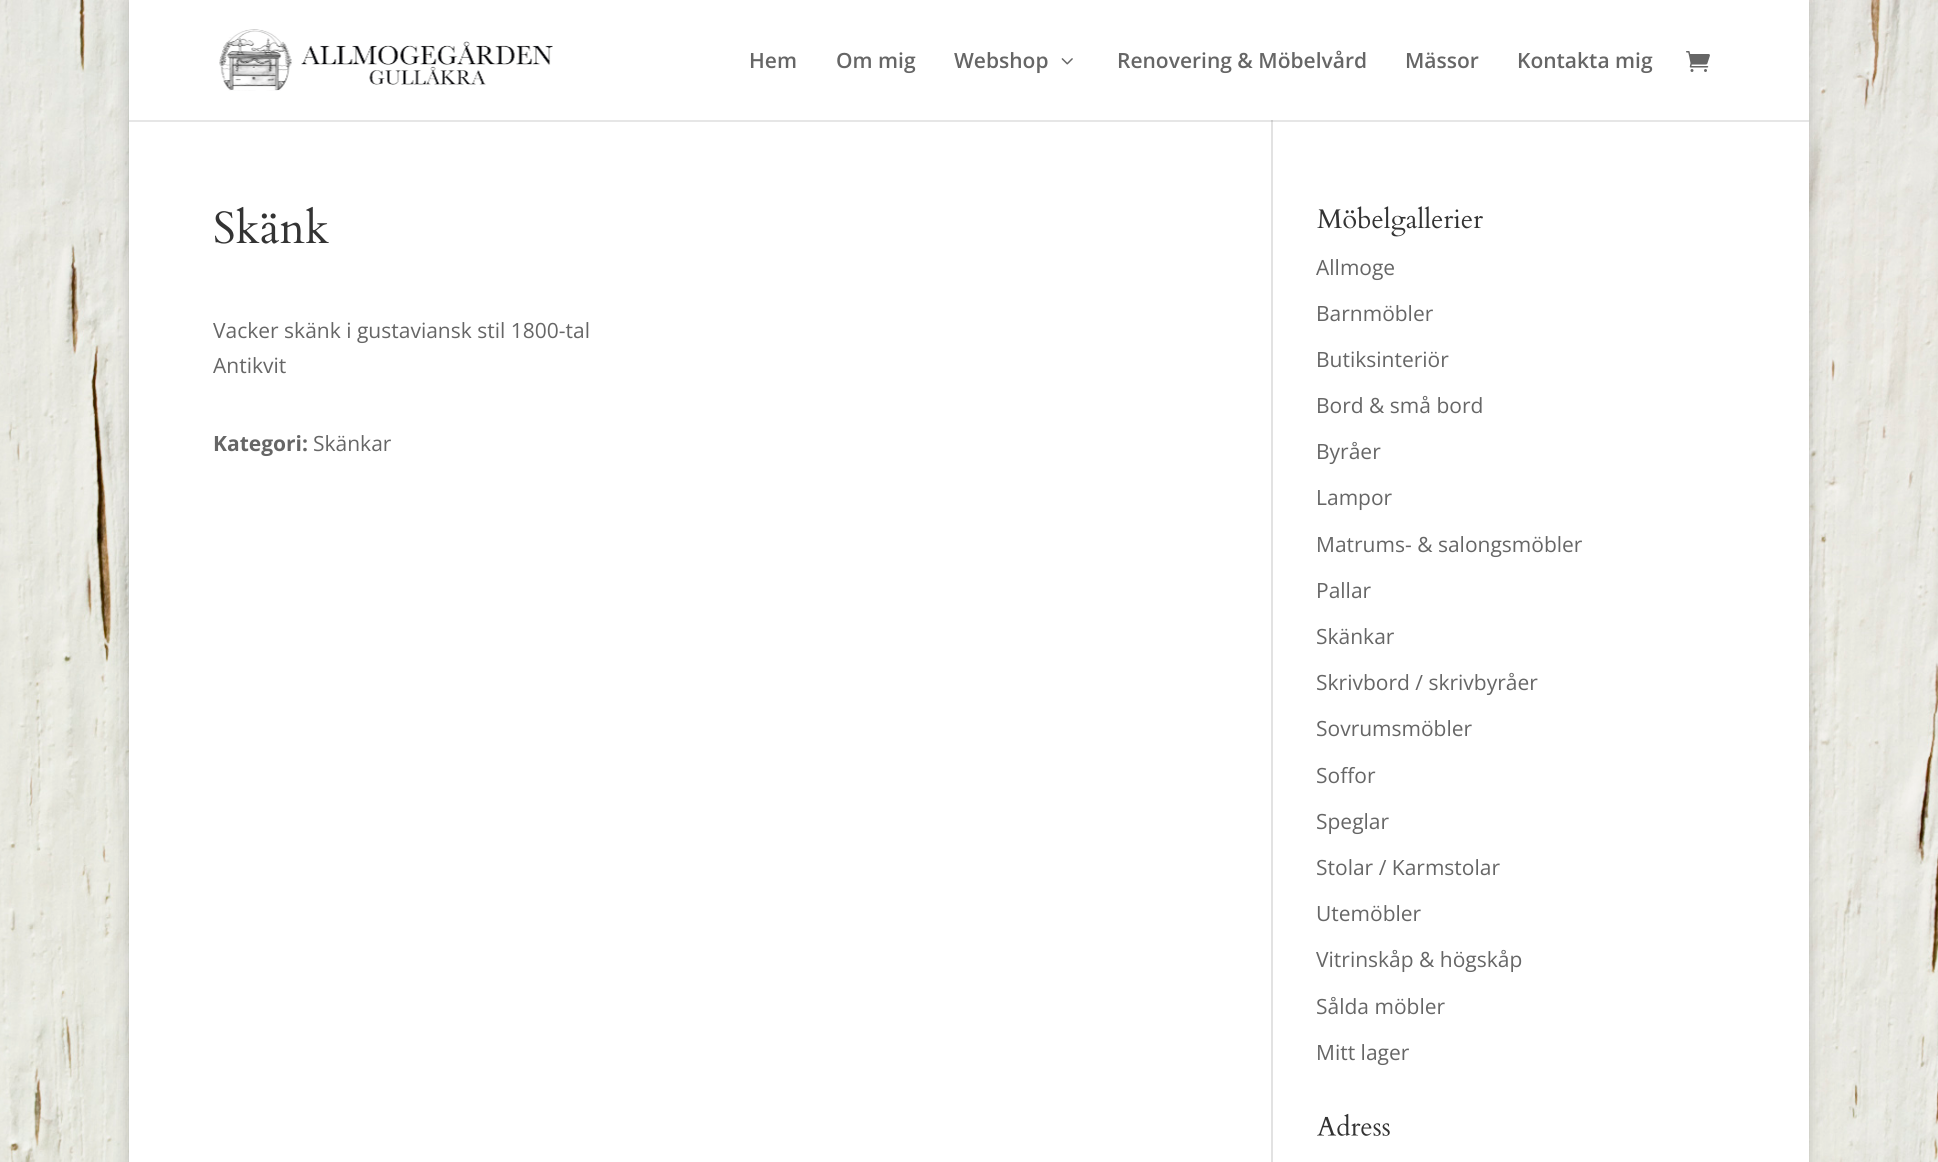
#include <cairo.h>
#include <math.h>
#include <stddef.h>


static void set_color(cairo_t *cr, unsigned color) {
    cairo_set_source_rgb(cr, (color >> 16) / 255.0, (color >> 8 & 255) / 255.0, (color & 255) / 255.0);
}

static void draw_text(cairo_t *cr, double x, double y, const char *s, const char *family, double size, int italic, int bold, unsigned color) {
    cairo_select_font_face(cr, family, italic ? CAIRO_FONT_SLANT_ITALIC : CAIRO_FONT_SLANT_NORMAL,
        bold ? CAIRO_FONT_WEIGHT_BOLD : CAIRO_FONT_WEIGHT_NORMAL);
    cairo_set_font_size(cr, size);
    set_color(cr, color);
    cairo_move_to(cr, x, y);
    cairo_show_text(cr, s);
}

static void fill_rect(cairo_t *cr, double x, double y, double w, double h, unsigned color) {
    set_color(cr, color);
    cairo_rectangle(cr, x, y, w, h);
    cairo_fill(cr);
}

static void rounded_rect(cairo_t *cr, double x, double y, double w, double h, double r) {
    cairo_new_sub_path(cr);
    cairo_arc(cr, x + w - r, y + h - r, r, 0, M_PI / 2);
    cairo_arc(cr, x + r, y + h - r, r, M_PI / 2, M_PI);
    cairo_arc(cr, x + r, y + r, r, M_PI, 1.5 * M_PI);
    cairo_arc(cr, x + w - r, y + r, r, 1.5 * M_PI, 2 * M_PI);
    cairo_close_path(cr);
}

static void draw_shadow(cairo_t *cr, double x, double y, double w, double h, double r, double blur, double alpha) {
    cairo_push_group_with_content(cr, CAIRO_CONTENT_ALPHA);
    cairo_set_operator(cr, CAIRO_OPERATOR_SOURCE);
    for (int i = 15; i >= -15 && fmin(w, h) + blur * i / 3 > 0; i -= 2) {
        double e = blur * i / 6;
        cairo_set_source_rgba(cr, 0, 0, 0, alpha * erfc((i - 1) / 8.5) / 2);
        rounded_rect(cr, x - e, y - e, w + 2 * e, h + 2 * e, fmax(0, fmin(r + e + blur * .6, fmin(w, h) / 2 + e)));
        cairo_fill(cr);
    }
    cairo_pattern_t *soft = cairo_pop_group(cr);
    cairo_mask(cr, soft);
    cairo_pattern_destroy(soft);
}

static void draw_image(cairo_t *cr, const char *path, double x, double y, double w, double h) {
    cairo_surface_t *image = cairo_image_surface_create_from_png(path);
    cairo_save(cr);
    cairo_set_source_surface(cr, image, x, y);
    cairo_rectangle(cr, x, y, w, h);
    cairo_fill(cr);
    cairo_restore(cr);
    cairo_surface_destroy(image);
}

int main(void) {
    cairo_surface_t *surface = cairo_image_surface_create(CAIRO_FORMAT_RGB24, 1938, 1162);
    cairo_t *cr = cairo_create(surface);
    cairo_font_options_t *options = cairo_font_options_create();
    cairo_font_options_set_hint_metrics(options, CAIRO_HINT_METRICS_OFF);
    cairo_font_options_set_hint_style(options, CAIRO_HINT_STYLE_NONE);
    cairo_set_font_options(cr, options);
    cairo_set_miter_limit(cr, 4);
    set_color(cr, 0xFFFFFF);
    cairo_paint(cr);
    draw_image(cr, "assets/img1.png", 0, 0, 1938, 1162);
    set_color(cr, 0x000000);
    draw_shadow(cr, 129, 0, 1680, 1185, 0, 7.5, 0.2);
    fill_rect(cr, 129, 0, 1680, 1162, 0xFFFFFF);
    fill_rect(cr, 1271, 120, 2, 1042, 0xE2E2E2);
    cairo_set_source_rgba(cr, 0, 0, 0, 0.1);
    cairo_rectangle(cr, 129, 120, 1680, 2);
    cairo_fill(cr);
    draw_image(cr, "assets/img2.png", 219, 29, 334, 62);
    draw_text(cr, 749, 68, "Hem", "Open Sans SemiBold", 21, 0, 0, 0x666666);
    draw_text(cr, 836, 68, "Om mig", "Open Sans SemiBold", 21, 0, 0, 0x666666);
    draw_text(cr, 954, 68, "Webshop", "Open Sans SemiBold", 21, 0, 0, 0x666666);
    draw_image(cr, "assets/img3.png", 1061, 58, 12, 7);
    draw_text(cr, 1117, 68, "Renovering & Möbelvård", "Open Sans SemiBold", 21, 0, 0, 0x666666);
    draw_text(cr, 1405, 68, "Mässor", "Open Sans SemiBold", 21, 0, 0, 0x666666);
    draw_text(cr, 1517, 68, "Kontakta mig", "Open Sans SemiBold", 21, 0, 0, 0x666666);
    draw_image(cr, "assets/img4.png", 1686, 51, 24, 21);
    draw_image(cr, "assets/img5.png", 215, 206, 114, 38);
    draw_text(cr, 213, 338, "Vacker skänk i gustaviansk stil 1800-tal", "Open Sans", 21, 0, 0, 0x666666);
    draw_text(cr, 213, 373, "Antikvit", "Open Sans", 21, 0, 0, 0x666666);
    draw_text(cr, 213, 451, "Kategori:", "Open Sans", 21, 0, 1, 0x666666);
    draw_text(cr, 313, 451, "Skänkar", "Open Sans", 21, 0, 0, 0x666666);
    draw_image(cr, "assets/img6.png", 1317, 206, 166, 31);
    draw_text(cr, 1316, 275, "Allmoge", "Open Sans", 21, 0, 0, 0x666666);
    draw_text(cr, 1316, 321, "Barnmöbler", "Open Sans", 21, 0, 0, 0x666666);
    draw_text(cr, 1316, 367, "Butiksinteriör", "Open Sans", 21, 0, 0, 0x666666);
    draw_text(cr, 1316, 413, "Bord & små bord", "Open Sans", 21, 0, 0, 0x666666);
    draw_text(cr, 1316, 459, "Byråer", "Open Sans", 21, 0, 0, 0x666666);
    draw_text(cr, 1316, 505, "Lampor", "Open Sans", 21, 0, 0, 0x666666);
    draw_text(cr, 1316, 552, "Matrums- & salongsmöbler", "Open Sans", 21, 0, 0, 0x666666);
    draw_text(cr, 1316, 598, "Pallar", "Open Sans", 21, 0, 0, 0x666666);
    draw_text(cr, 1316, 644, "Skänkar", "Open Sans", 21, 0, 0, 0x666666);
    draw_text(cr, 1316, 690, "Skrivbord / skrivbyråer", "Open Sans", 21, 0, 0, 0x666666);
    draw_text(cr, 1316, 736, "Sovrumsmöbler", "Open Sans", 21, 0, 0, 0x666666);
    draw_text(cr, 1316, 783, "Soffor", "Open Sans", 21, 0, 0, 0x666666);
    draw_text(cr, 1316, 829, "Speglar", "Open Sans", 21, 0, 0, 0x666666);
    draw_text(cr, 1316, 875, "Stolar / Karmstolar", "Open Sans", 21, 0, 0, 0x666666);
    draw_text(cr, 1316, 921, "Utemöbler", "Open Sans", 21, 0, 0, 0x666666);
    draw_text(cr, 1316, 967, "Vitrinskåp & högskåp", "Open Sans", 21, 0, 0, 0x666666);
    draw_text(cr, 1316, 1014, "Sålda möbler", "Open Sans", 21, 0, 0, 0x666666);
    draw_text(cr, 1316, 1060, "Mitt lager", "Open Sans", 21, 0, 0, 0x666666);
    draw_image(cr, "assets/img7.png", 1317, 1113, 73, 23);
    cairo_surface_write_to_png(surface, "output.png");
    cairo_font_options_destroy(options);
    cairo_destroy(cr);
    cairo_surface_destroy(surface);
    return 0;
}
